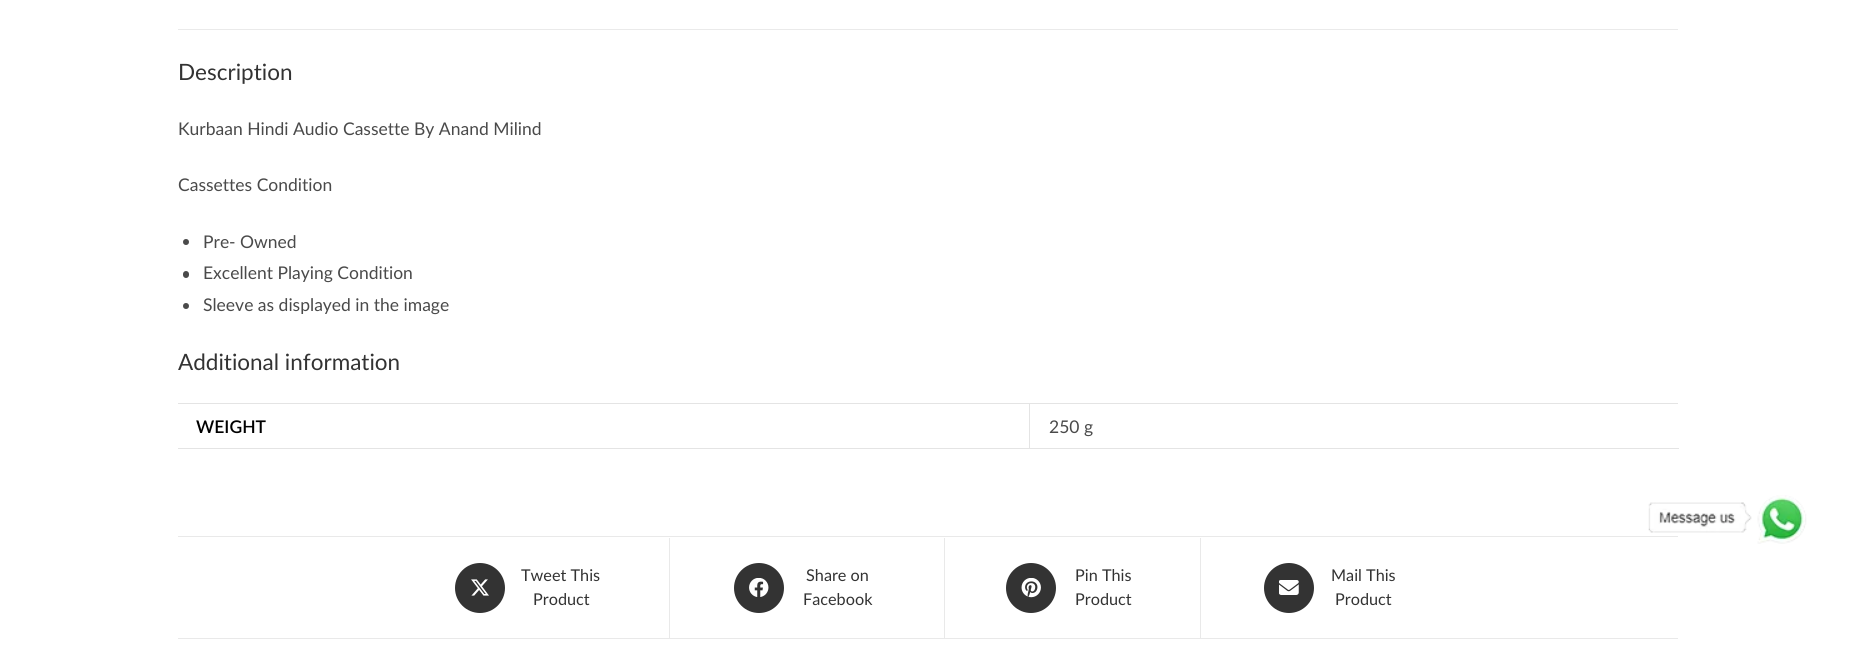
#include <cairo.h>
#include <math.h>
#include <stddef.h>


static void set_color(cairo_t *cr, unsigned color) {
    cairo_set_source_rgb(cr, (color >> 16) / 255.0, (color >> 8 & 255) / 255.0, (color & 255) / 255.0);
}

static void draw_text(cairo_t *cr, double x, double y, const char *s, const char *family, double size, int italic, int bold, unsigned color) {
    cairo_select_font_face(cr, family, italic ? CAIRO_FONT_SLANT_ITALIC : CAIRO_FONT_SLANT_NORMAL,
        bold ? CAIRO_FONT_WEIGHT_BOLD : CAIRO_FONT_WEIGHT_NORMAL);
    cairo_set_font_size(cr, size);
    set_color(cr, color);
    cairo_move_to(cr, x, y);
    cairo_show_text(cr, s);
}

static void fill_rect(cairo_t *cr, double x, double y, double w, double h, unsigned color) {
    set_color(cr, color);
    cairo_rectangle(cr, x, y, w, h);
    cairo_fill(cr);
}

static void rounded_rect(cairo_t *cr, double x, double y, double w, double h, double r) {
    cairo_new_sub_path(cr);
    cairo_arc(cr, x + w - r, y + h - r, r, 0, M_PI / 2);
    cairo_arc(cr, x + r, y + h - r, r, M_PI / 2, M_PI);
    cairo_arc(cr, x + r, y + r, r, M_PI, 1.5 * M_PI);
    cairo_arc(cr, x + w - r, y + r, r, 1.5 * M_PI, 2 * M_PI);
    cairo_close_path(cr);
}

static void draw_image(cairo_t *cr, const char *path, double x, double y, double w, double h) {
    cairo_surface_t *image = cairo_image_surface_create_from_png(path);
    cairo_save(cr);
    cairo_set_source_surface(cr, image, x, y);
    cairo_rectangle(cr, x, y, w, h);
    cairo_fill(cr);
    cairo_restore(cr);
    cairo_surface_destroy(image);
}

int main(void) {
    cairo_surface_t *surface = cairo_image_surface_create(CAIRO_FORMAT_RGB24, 1855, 662);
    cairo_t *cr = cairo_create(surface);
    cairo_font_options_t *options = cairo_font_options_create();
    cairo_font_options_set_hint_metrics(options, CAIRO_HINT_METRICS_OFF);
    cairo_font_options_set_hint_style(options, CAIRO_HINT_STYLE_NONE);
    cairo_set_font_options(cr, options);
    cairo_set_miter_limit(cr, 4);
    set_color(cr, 0xFFFFFF);
    cairo_paint(cr);
    fill_rect(cr, 178, 29, 1500, 1, 0xEAEAEA);
    draw_text(cr, 178, 80, "Description", "Lato", 22.5, 0, 0, 0x333333);
    draw_text(cr, 178, 135, "Kurbaan Hindi Audio Cassette By Anand Milind", "Lato", 17.5, 0, 0, 0x4A4A4A);
    draw_text(cr, 178, 191, "Cassettes Condition", "Lato", 17.5, 0, 0, 0x4A4A4A);
    cairo_new_path(cr);
    cairo_arc(cr, 186, 242, 3, 0, 2 * M_PI);
    cairo_fill(cr);
    draw_text(cr, 203, 248, "Pre- Owned", "Lato", 17.5, 0, 0, 0x4A4A4A);
    rounded_rect(cr, 183, 271, 6, 7, 3);
    cairo_fill(cr);
    draw_text(cr, 203, 279, "Excellent Playing Condition", "Lato", 17.5, 0, 0, 0x4A4A4A);
    cairo_new_path(cr);
    cairo_arc(cr, 186, 306, 3, 0, 2 * M_PI);
    cairo_fill(cr);
    draw_text(cr, 203, 311, "Sleeve as displayed in the image", "Lato", 17.5, 0, 0, 0x4A4A4A);
    draw_text(cr, 178, 370, "Additional information", "Lato", 22.5, 0, 0, 0x333333);
    fill_rect(cr, 178, 403, 1500, 1, 0xE4E4E4);
    fill_rect(cr, 1029, 448, 650, 1, 0xE4E4E4);
    fill_rect(cr, 1029, 403, 1, 46, 0xE4E4E4);
    fill_rect(cr, 178, 448, 852, 1, 0xE4E4E4);
    draw_text(cr, 196, 433, "WEIGHT", "Lato SemiBold", 17.5, 0, 0, 0x000000);
    draw_text(cr, 1049, 433, "250 g", "Lato", 17.5, 0, 0, 0x4A4A4A);
    fill_rect(cr, 178, 536, 1500, 1, 0xE9E9E9);
    fill_rect(cr, 178, 638, 1500, 1, 0xE9E9E9);
    fill_rect(cr, 669, 538, 1, 100, 0xE9E9E9);
    set_color(cr, 0x333333);
    cairo_new_path(cr);
    cairo_arc(cr, 480, 588, 25, 0, 2 * M_PI);
    cairo_fill(cr);
    draw_image(cr, "assets/img1.png", 471, 579, 18, 17);
    draw_text(cr, 521, 581, "Tweet This", "Lato", 16.25, 0, 0, 0x333333);
    draw_text(cr, 533, 605, "Product", "Lato", 16.25, 0, 0, 0x333333);
    fill_rect(cr, 944, 538, 1, 100, 0xE9E9E9);
    set_color(cr, 0x333333);
    cairo_new_path(cr);
    cairo_arc(cr, 759, 588, 25, 0, 2 * M_PI);
    cairo_fill(cr);
    draw_image(cr, "assets/img2.png", 749, 578, 20, 19);
    draw_text(cr, 806, 581, "Share on", "Lato", 16.25, 0, 0, 0x333333);
    draw_text(cr, 803, 605, "Facebook", "Lato", 16.25, 0, 0, 0x333333);
    fill_rect(cr, 1200, 538, 1, 100, 0xE9E9E9);
    set_color(cr, 0x333333);
    cairo_new_path(cr);
    cairo_arc(cr, 1031, 588, 25, 0, 2 * M_PI);
    cairo_fill(cr);
    draw_image(cr, "assets/img3.png", 1021, 578, 20, 20);
    draw_text(cr, 1075, 581, "Pin This", "Lato", 16.25, 0, 0, 0x333333);
    draw_text(cr, 1075, 605, "Product", "Lato", 16.25, 0, 0, 0x333333);
    cairo_new_path(cr);
    cairo_arc(cr, 1289, 588, 25, 0, 2 * M_PI);
    cairo_fill(cr);
    draw_image(cr, "assets/img4.png", 1279, 580, 20, 15);
    draw_text(cr, 1331, 581, "Mail This", "Lato", 16.25, 0, 0, 0x333333);
    draw_text(cr, 1335, 605, "Product", "Lato", 16.25, 0, 0, 0x333333);
    draw_image(cr, "assets/img5.png", 1648, 495, 159, 49);
    cairo_surface_write_to_png(surface, "output.png");
    cairo_font_options_destroy(options);
    cairo_destroy(cr);
    cairo_surface_destroy(surface);
    return 0;
}
